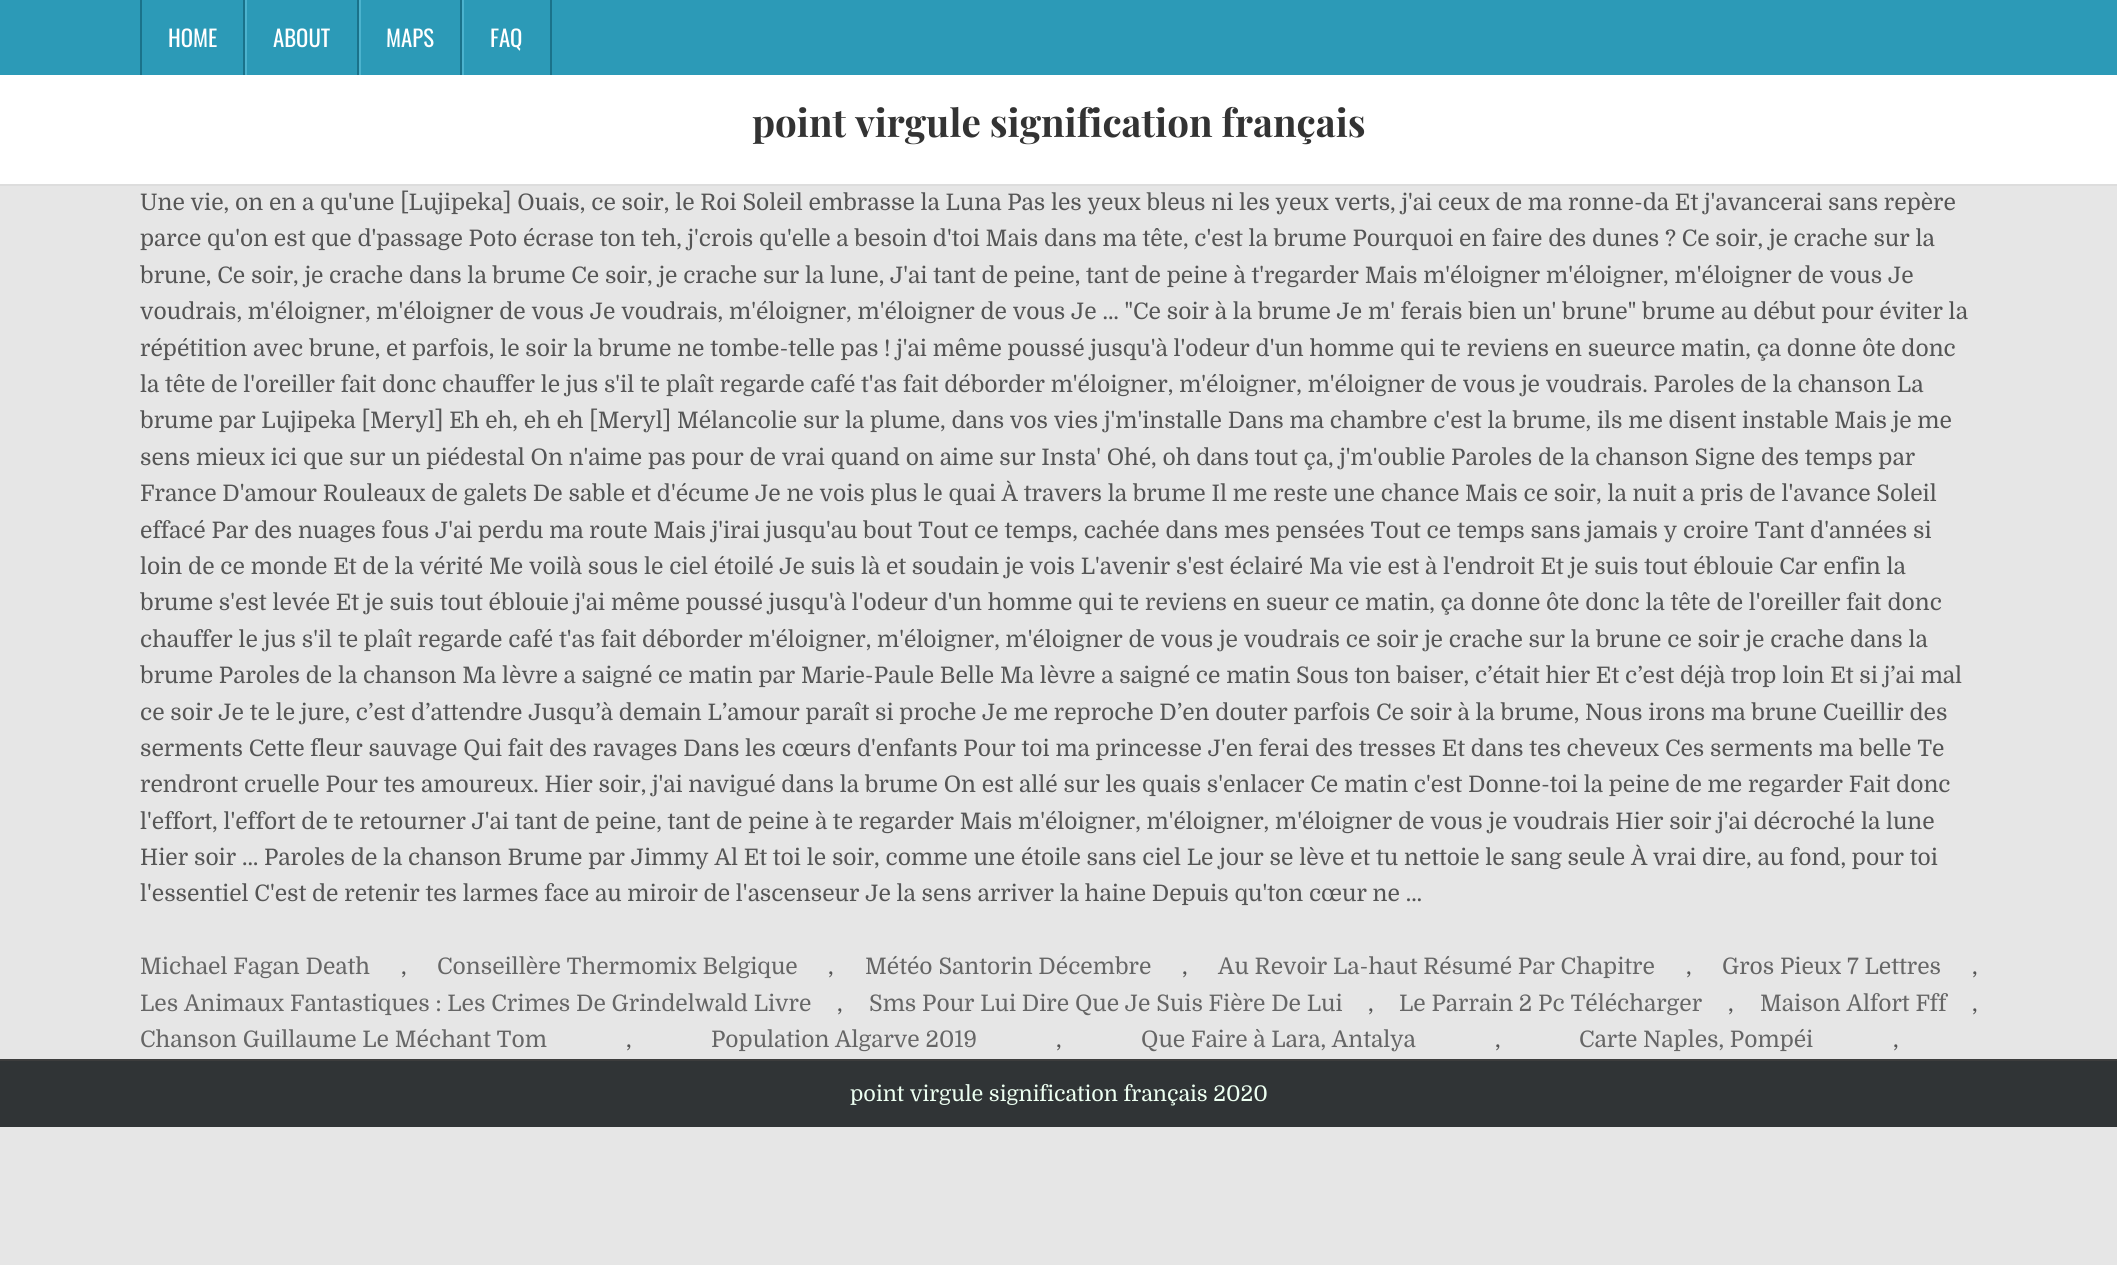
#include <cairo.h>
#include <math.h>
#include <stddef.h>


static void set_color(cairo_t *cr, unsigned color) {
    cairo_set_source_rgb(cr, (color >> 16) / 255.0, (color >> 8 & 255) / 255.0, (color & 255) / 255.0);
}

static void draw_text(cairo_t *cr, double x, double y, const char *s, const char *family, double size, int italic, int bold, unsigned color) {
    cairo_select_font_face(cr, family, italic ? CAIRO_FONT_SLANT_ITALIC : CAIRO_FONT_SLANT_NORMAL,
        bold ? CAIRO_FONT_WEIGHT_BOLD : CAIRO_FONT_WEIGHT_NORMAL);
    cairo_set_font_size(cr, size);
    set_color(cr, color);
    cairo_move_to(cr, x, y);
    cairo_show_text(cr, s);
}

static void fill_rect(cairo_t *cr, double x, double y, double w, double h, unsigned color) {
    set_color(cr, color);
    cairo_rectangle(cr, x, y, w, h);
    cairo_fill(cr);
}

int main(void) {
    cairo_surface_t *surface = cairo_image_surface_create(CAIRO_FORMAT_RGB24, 2117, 1265);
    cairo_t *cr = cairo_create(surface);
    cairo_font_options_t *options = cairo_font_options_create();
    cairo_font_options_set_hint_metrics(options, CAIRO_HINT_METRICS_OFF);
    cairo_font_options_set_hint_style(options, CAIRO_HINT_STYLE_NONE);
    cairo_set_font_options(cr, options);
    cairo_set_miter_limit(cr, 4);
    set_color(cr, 0xE6E6E6);
    cairo_paint(cr);
    fill_rect(cr, 0, 0, 2117, 75, 0x2C9AB7);
    fill_rect(cr, 243, 0, 2, 75, 0x1A728A);
    fill_rect(cr, 140, 0, 2, 75, 0x1A728A);
    draw_text(cr, 168, 47, "HOME", "Oswald", 22.75, 0, 0, 0xFFFFFF);
    fill_rect(cr, 357, 0, 2, 75, 0x1A728A);
    fill_rect(cr, 245, 0, 2, 75, 0x4CB3CE);
    draw_text(cr, 273, 47, "ABOUT", "Oswald", 22.75, 0, 0, 0xFFFFFF);
    fill_rect(cr, 460, 0, 2, 75, 0x1A728A);
    fill_rect(cr, 359, 0, 2, 75, 0x4CB3CE);
    draw_text(cr, 386, 47, "MAPS", "Oswald", 22.75, 0, 0, 0xFFFFFF);
    fill_rect(cr, 550, 0, 2, 75, 0x1A728A);
    fill_rect(cr, 462, 0, 2, 75, 0x4CB3CE);
    draw_text(cr, 490, 47, "FAQ", "Oswald", 22.75, 0, 0, 0xFFFFFF);
    fill_rect(cr, 0, 75, 2117, 109, 0xFFFFFF);
    fill_rect(cr, 0, 184, 2117, 2, 0xDDDDDD);
    draw_text(cr, 752, 137, "point virgule signification français", "Playfair Display", 38.5, 0, 1, 0x333333);
    draw_text(cr, 140, 210, "Une vie, on en a qu'une [Lujipeka] Ouais, ce soir, le Roi Soleil embrasse la Luna Pas les yeux bleus ni les yeux verts, j'ai ceux de ma ronne-da Et j'avancerai sans repère", "Domine", 22.75, 0, 0, 0x555555);
    draw_text(cr, 140, 246, "parce qu'on est que d'passage Poto écrase ton teh, j'crois qu'elle a besoin d'toi Mais dans ma tête, c'est la brume Pourquoi en faire des dunes ? Ce soir, je crache sur la", "Domine", 22.75, 0, 0, 0x555555);
    draw_text(cr, 140, 283, "brune, Ce soir, je crache dans la brume Ce soir, je crache sur la lune, J'ai tant de peine, tant de peine à t'regarder Mais m'éloigner m'éloigner, m'éloigner de vous Je", "Domine", 22.75, 0, 0, 0x555555);
    draw_text(cr, 140, 319, "voudrais, m'éloigner, m'éloigner de vous Je voudrais, m'éloigner, m'éloigner de vous Je … \"Ce soir à la brume Je m' ferais bien un' brune\" brume au début pour éviter la", "Domine", 22.75, 0, 0, 0x555555);
    draw_text(cr, 140, 356, "répétition avec brune, et parfois, le soir la brume ne tombe-telle pas ! j'ai même poussé jusqu'à l'odeur d'un homme qui te reviens en sueurce matin, ça donne ôte donc", "Domine", 22.75, 0, 0, 0x555555);
    draw_text(cr, 140, 392, "la tête de l'oreiller fait donc chauffer le jus s'il te plaît regarde café t'as fait déborder m'éloigner, m'éloigner, m'éloigner de vous je voudrais. Paroles de la chanson La", "Domine", 22.75, 0, 0, 0x555555);
    draw_text(cr, 140, 428, "brume par Lujipeka [Meryl] Eh eh, eh eh [Meryl] Mélancolie sur la plume, dans vos vies j'm'installe Dans ma chambre c'est la brume, ils me disent instable Mais je me", "Domine", 22.75, 0, 0, 0x555555);
    draw_text(cr, 140, 465, "sens mieux ici que sur un piédestal On n'aime pas pour de vrai quand on aime sur Insta' Ohé, oh dans tout ça, j'm'oublie Paroles de la chanson Signe des temps par", "Domine", 22.75, 0, 0, 0x555555);
    draw_text(cr, 140, 501, "France D'amour Rouleaux de galets De sable et d'écume Je ne vois plus le quai À travers la brume Il me reste une chance Mais ce soir, la nuit a pris de l'avance Soleil", "Domine", 22.75, 0, 0, 0x555555);
    draw_text(cr, 140, 538, "effacé Par des nuages fous J'ai perdu ma route Mais j'irai jusqu'au bout Tout ce temps, cachée dans mes pensées Tout ce temps sans jamais y croire Tant d'années si", "Domine", 22.75, 0, 0, 0x555555);
    draw_text(cr, 140, 574, "loin de ce monde Et de la vérité Me voilà sous le ciel étoilé Je suis là et soudain je vois L'avenir s'est éclairé Ma vie est à l'endroit Et je suis tout éblouie Car enfin la", "Domine", 22.75, 0, 0, 0x555555);
    draw_text(cr, 140, 610, "brume s'est levée Et je suis tout éblouie j'ai même poussé jusqu'à l'odeur d'un homme qui te reviens en sueur ce matin, ça donne ôte donc la tête de l'oreiller fait donc", "Domine", 22.75, 0, 0, 0x555555);
    draw_text(cr, 140, 647, "chauffer le jus s'il te plaît regarde café t'as fait déborder m'éloigner, m'éloigner, m'éloigner de vous je voudrais ce soir je crache sur la brune ce soir je crache dans la", "Domine", 22.75, 0, 0, 0x555555);
    draw_text(cr, 140, 683, "brume Paroles de la chanson Ma lèvre a saigné ce matin par Marie-Paule Belle Ma lèvre a saigné ce matin Sous ton baiser, c’était hier Et c’est déjà trop loin Et si j’ai mal", "Domine", 22.75, 0, 0, 0x555555);
    draw_text(cr, 140, 720, "ce soir Je te le jure, c’est d’attendre Jusqu’à demain L’amour paraît si proche Je me reproche D’en douter parfois Ce soir à la brume, Nous irons ma brune Cueillir des", "Domine", 22.75, 0, 0, 0x555555);
    draw_text(cr, 140, 756, "serments Cette fleur sauvage Qui fait des ravages Dans les cœurs d'enfants Pour toi ma princesse J'en ferai des tresses Et dans tes cheveux Ces serments ma belle Te", "Domine", 22.75, 0, 0, 0x555555);
    draw_text(cr, 140, 792, "rendront cruelle Pour tes amoureux. Hier soir, j'ai navigué dans la brume On est allé sur les quais s'enlacer Ce matin c'est Donne-toi la peine de me regarder Fait donc", "Domine", 22.75, 0, 0, 0x555555);
    draw_text(cr, 140, 829, "l'effort, l'effort de te retourner J'ai tant de peine, tant de peine à te regarder Mais m'éloigner, m'éloigner, m'éloigner de vous je voudrais Hier soir j'ai décroché la lune", "Domine", 22.75, 0, 0, 0x555555);
    draw_text(cr, 140, 865, "Hier soir … Paroles de la chanson Brume par Jimmy Al Et toi le soir, comme une étoile sans ciel Le jour se lève et tu nettoie le sang seule À vrai dire, au fond, pour toi", "Domine", 22.75, 0, 0, 0x555555);
    draw_text(cr, 140, 901, "l'essentiel C'est de retenir tes larmes face au miroir de l'ascenseur Je la sens arriver la haine Depuis qu'ton cœur ne …", "Domine", 22.75, 0, 0, 0x555555);
    draw_text(cr, 140, 974, "Michael Fagan Death", "Domine", 22.75, 0, 0, 0x666666);
    draw_text(cr, 401, 974, ",", "Domine", 22.75, 0, 0, 0x555555);
    draw_text(cr, 437, 974, "Conseillère Thermomix Belgique", "Domine", 22.75, 0, 0, 0x666666);
    draw_text(cr, 828, 974, ",", "Domine", 22.75, 0, 0, 0x555555);
    draw_text(cr, 865, 974, "Météo Santorin Décembre", "Domine", 22.75, 0, 0, 0x666666);
    draw_text(cr, 1182, 974, ",", "Domine", 22.75, 0, 0, 0x555555);
    draw_text(cr, 1218, 974, "Au Revoir La-haut Résumé Par Chapitre", "Domine", 22.75, 0, 0, 0x666666);
    draw_text(cr, 1686, 974, ",", "Domine", 22.75, 0, 0, 0x555555);
    draw_text(cr, 1722, 974, "Gros Pieux 7 Lettres", "Domine", 22.75, 0, 0, 0x666666);
    draw_text(cr, 1972, 974, ",", "Domine", 22.75, 0, 0, 0x555555);
    draw_text(cr, 140, 1011, "Les Animaux Fantastiques : Les Crimes De Grindelwald Livre", "Domine", 22.75, 0, 0, 0x666666);
    draw_text(cr, 837, 1011, ",", "Domine", 22.75, 0, 0, 0x555555);
    draw_text(cr, 869, 1011, "Sms Pour Lui Dire Que Je Suis Fière De Lui", "Domine", 22.75, 0, 0, 0x666666);
    draw_text(cr, 1368, 1011, ",", "Domine", 22.75, 0, 0, 0x555555);
    draw_text(cr, 1399, 1011, "Le Parrain 2 Pc Télécharger", "Domine", 22.75, 0, 0, 0x666666);
    draw_text(cr, 1728, 1011, ",", "Domine", 22.75, 0, 0, 0x555555);
    draw_text(cr, 1760, 1011, "Maison Alfort Fff", "Domine", 22.75, 0, 0, 0x666666);
    draw_text(cr, 1972, 1011, ",", "Domine", 22.75, 0, 0, 0x555555);
    draw_text(cr, 140, 1047, "Chanson Guillaume Le Méchant Tom", "Domine", 22.75, 0, 0, 0x666666);
    draw_text(cr, 626, 1047, ",", "Domine", 22.75, 0, 0, 0x555555);
    draw_text(cr, 711, 1047, "Population Algarve 2019", "Domine", 22.75, 0, 0, 0x666666);
    draw_text(cr, 1056, 1047, ",", "Domine", 22.75, 0, 0, 0x555555);
    draw_text(cr, 1141, 1047, "Que Faire à Lara, Antalya", "Domine", 22.75, 0, 0, 0x666666);
    draw_text(cr, 1495, 1047, ",", "Domine", 22.75, 0, 0, 0x555555);
    draw_text(cr, 1579, 1047, "Carte Naples, Pompéi", "Domine", 22.75, 0, 0, 0x666666);
    draw_text(cr, 1893, 1047, ",", "Domine", 22.75, 0, 0, 0x555555);
    fill_rect(cr, 0, 1061, 2117, 66, 0x303436);
    fill_rect(cr, 0, 1059, 2117, 2, 0x3D3D3D);
    draw_text(cr, 850, 1101, "point virgule signification français 2020", "Domine", 21.6, 0, 0, 0xECFFF1);
    cairo_surface_write_to_png(surface, "output.png");
    cairo_font_options_destroy(options);
    cairo_destroy(cr);
    cairo_surface_destroy(surface);
    return 0;
}
